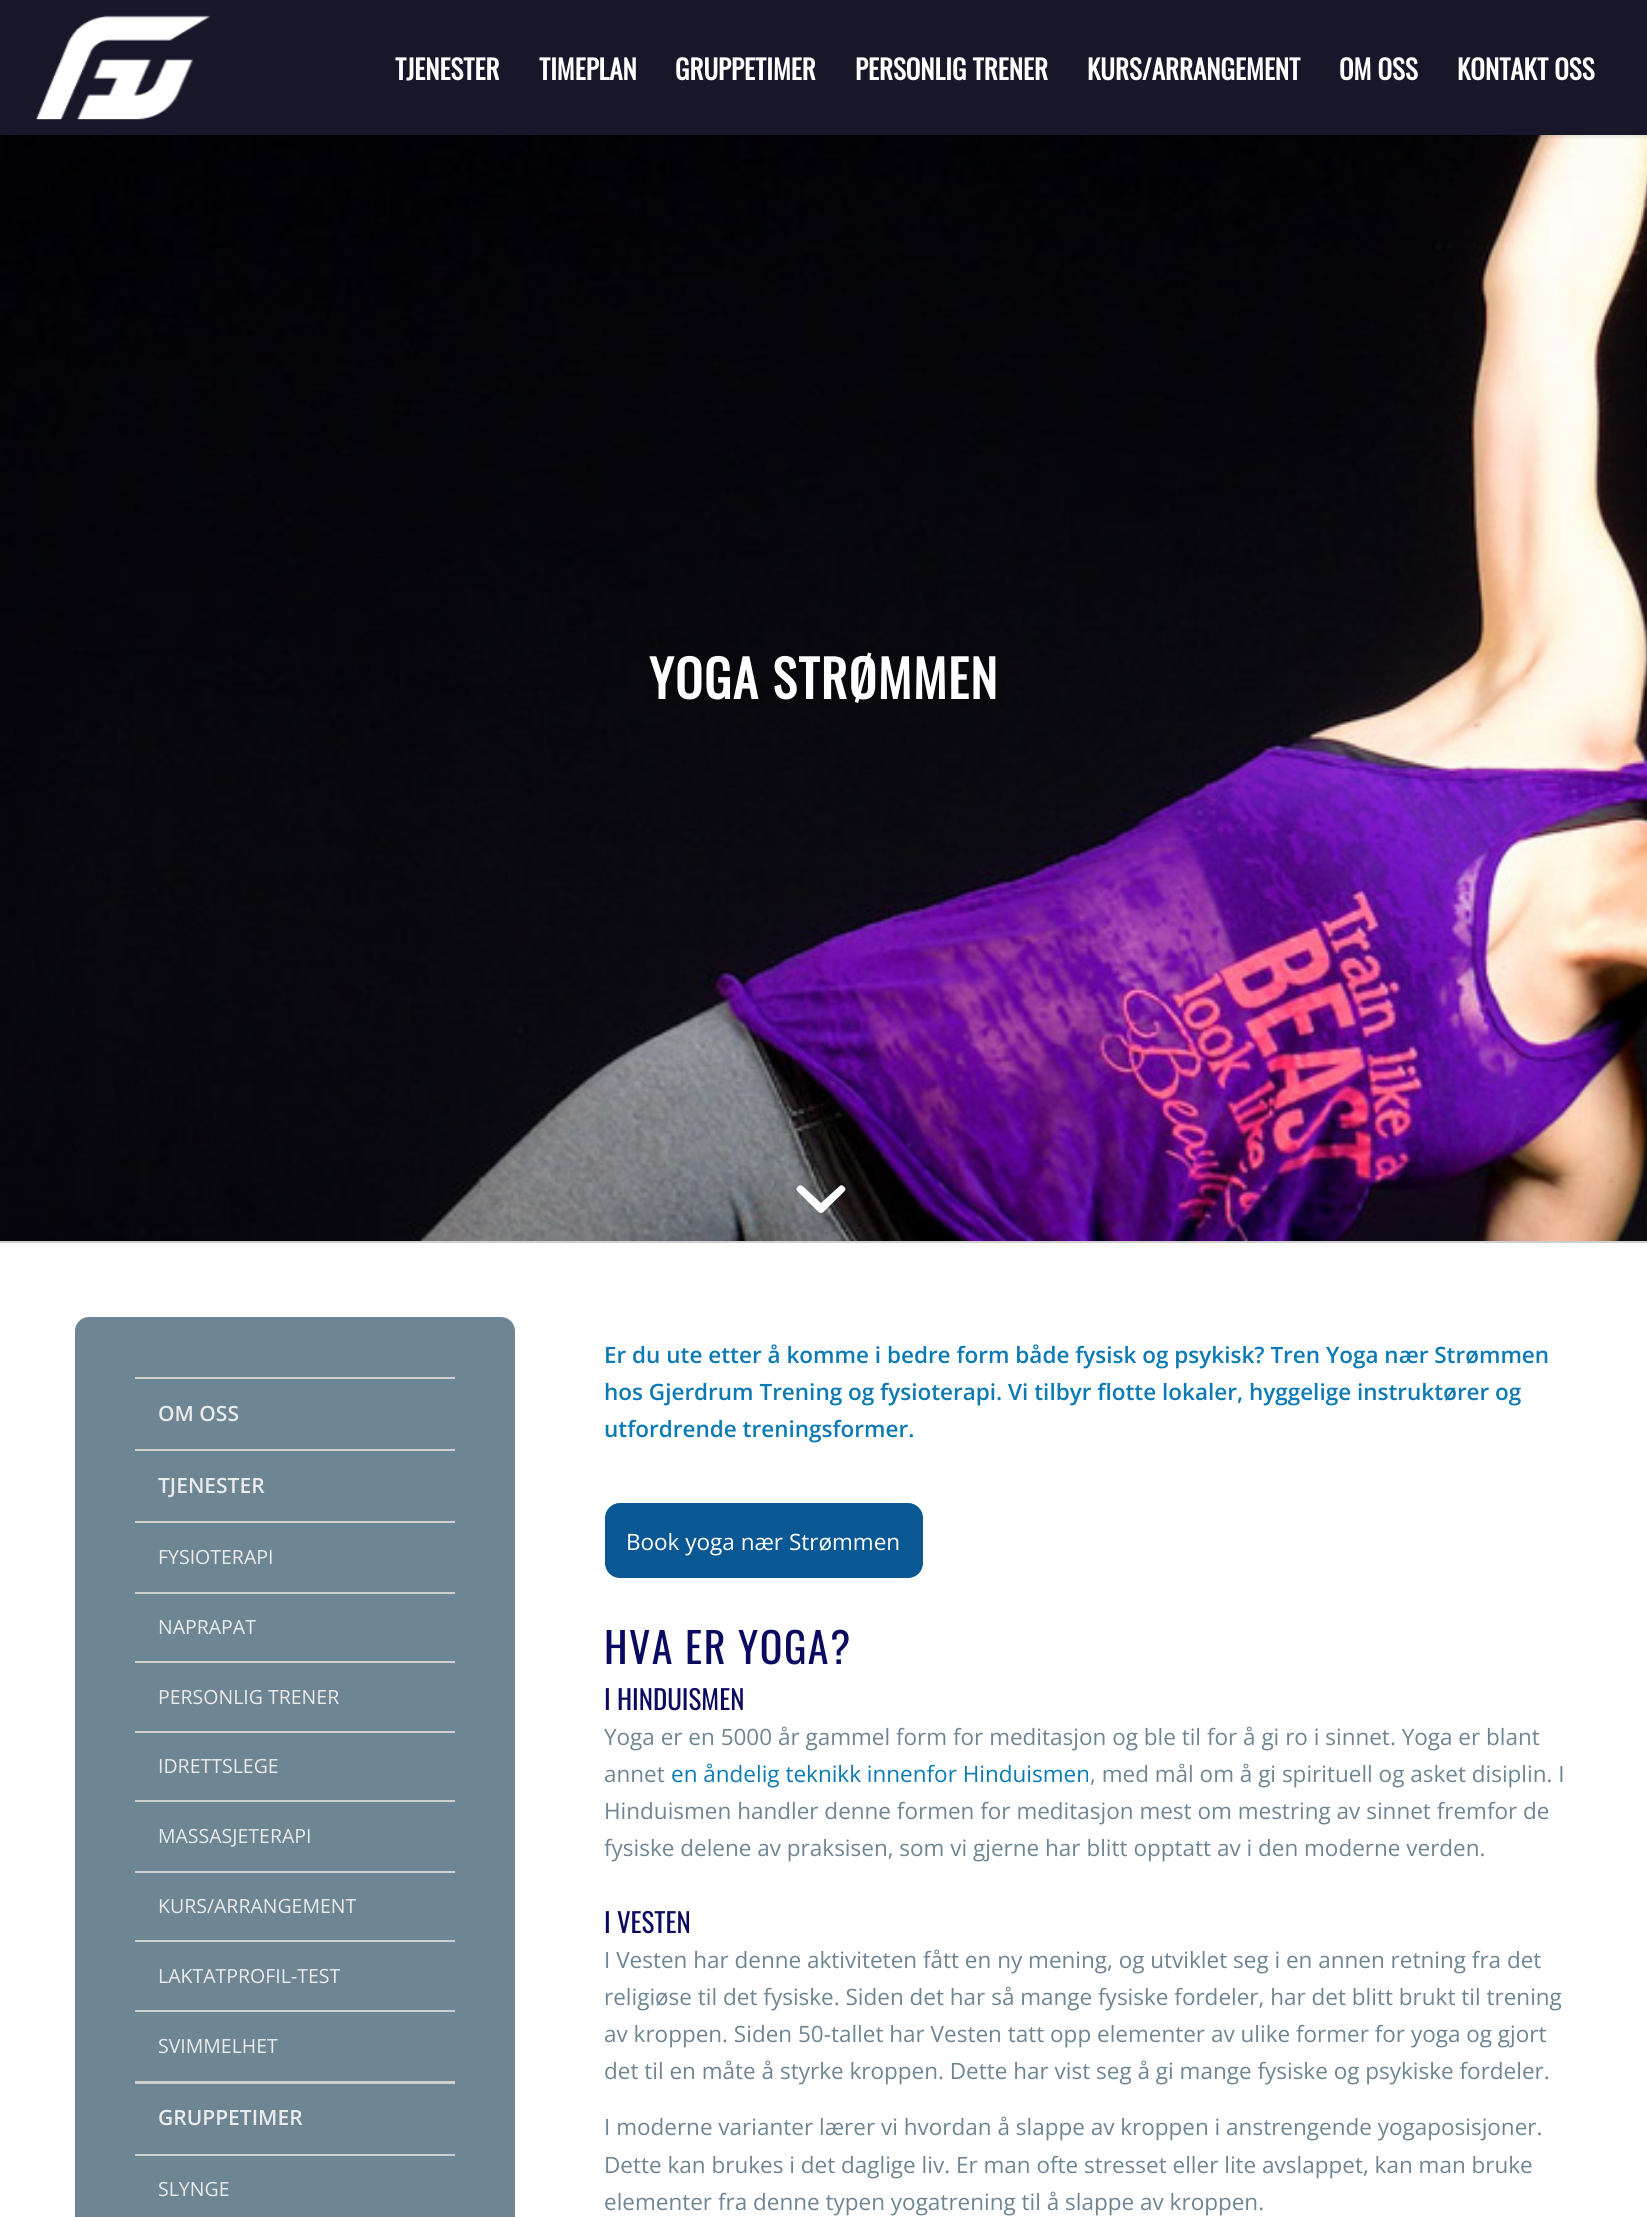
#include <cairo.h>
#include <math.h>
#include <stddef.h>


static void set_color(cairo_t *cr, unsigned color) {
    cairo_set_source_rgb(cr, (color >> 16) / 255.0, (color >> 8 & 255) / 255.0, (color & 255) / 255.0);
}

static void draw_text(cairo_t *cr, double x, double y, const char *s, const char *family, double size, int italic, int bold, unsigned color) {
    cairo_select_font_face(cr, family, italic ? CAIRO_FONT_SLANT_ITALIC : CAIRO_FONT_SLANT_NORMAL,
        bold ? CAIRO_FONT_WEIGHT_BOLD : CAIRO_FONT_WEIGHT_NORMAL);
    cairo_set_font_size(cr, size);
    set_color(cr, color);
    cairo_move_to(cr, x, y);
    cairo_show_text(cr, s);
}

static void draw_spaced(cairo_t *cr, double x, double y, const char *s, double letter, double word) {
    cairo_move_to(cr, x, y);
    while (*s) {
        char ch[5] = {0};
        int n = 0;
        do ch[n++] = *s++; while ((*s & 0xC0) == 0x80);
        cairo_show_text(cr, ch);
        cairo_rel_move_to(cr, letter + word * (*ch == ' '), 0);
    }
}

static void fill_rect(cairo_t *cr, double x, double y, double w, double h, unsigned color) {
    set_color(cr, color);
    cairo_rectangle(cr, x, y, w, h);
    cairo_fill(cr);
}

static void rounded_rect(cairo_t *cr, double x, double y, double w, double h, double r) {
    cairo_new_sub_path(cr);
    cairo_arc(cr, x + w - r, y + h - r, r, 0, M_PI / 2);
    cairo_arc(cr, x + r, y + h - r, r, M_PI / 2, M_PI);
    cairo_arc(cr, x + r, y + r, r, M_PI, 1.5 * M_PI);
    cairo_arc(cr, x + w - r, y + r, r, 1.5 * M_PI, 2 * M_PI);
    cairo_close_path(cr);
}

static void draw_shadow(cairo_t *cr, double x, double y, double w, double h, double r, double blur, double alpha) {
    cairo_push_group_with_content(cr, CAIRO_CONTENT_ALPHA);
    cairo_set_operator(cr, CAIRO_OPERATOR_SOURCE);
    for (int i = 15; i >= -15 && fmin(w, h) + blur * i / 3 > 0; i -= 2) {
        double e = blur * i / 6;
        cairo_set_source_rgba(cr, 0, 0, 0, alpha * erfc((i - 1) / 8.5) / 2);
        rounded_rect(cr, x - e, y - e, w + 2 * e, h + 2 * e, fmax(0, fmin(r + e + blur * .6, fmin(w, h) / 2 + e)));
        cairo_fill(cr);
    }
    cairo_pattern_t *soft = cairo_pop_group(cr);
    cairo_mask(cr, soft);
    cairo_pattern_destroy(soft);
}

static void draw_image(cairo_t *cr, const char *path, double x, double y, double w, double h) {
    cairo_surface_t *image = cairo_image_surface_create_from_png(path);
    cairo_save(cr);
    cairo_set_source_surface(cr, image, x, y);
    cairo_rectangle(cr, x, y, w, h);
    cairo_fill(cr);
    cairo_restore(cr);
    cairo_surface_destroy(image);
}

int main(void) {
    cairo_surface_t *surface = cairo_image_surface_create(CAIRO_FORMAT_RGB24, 1647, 2217);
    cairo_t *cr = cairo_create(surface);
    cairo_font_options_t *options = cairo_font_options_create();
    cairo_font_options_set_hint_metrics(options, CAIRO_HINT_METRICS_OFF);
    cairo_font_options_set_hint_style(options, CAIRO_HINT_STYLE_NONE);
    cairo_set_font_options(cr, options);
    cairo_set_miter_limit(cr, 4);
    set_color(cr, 0xFFFFFF);
    cairo_paint(cr);
    draw_image(cr, "assets/img2.png", 0, 135, 1647, 1106);
    set_color(cr, 0x000000);
    draw_shadow(cr, -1, -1, 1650, 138, 0, 1.5, 0.1);
    fill_rect(cr, 0, 0, 1647, 135, 0x181729);
    draw_image(cr, "assets/img1.png", 36, 15, 174, 105);
    draw_text(cr, 395, 80, "TJENESTER", "Oswald", 27, 0, 1, 0xFFFFFF);
    draw_text(cr, 539, 80, "TIMEPLAN", "Oswald", 27, 0, 1, 0xFFFFFF);
    draw_text(cr, 675, 80, "GRUPPETIMER", "Oswald", 27, 0, 1, 0xFFFFFF);
    draw_text(cr, 855, 80, "PERSONLIG TRENER", "Oswald", 27, 0, 1, 0xFFFFFF);
    draw_text(cr, 1087, 80, "KURS/ARRANGEMENT", "Oswald", 27, 0, 1, 0xFFFFFF);
    draw_text(cr, 1339, 80, "OM OSS", "Oswald", 27, 0, 1, 0xFFFFFF);
    draw_text(cr, 1457, 80, "KONTAKT OSS", "Oswald", 27, 0, 1, 0xFFFFFF);
    cairo_set_font_size(cr, 51);
    draw_spaced(cr, 649, 699, "YOGA STRØMMEN", 1.5, 0);
    draw_image(cr, "assets/img3.png", 796, 1185, 50, 28);
    fill_rect(cr, 0, 1241, 1647, 2, 0xCFCFCF);
    set_color(cr, 0x6E8593);
    rounded_rect(cr, 75, 1317, 440, 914, 14);
    cairo_fill(cr);
    fill_rect(cr, 135, 1377, 320, 2, 0xCFCFCF);
    fill_rect(cr, 135, 1449, 320, 2, 0xCFCFCF);
    draw_text(cr, 158, 1421, "OM OSS", "Open Sans SemiBold", 21, 0, 0, 0xEBEBEB);
    fill_rect(cr, 135, 2081, 320, 3, 0xCFCFCF);
    draw_text(cr, 158, 1493, "TJENESTER", "Open Sans SemiBold", 21, 0, 0, 0xEBEBEB);
    fill_rect(cr, 135, 1521, 320, 2, 0xCFCFCF);
    fill_rect(cr, 135, 1592, 320, 2, 0xCFCFCF);
    draw_text(cr, 158, 1564, "FYSIOTERAPI", "Open Sans", 19.5, 0, 0, 0xEBEBEB);
    fill_rect(cr, 135, 1661, 320, 2, 0xCFCFCF);
    draw_text(cr, 158, 1634, "NAPRAPAT", "Open Sans", 19.5, 0, 0, 0xEBEBEB);
    fill_rect(cr, 135, 1731, 320, 2, 0xCFCFCF);
    draw_text(cr, 158, 1704, "PERSONLIG TRENER", "Open Sans", 19.5, 0, 0, 0xEBEBEB);
    fill_rect(cr, 135, 1800, 320, 2, 0xCFCFCF);
    draw_text(cr, 158, 1773, "IDRETTSLEGE", "Open Sans", 19.5, 0, 0, 0xEBEBEB);
    fill_rect(cr, 135, 1871, 320, 2, 0xCFCFCF);
    draw_text(cr, 158, 1843, "MASSASJETERAPI", "Open Sans", 19.5, 0, 0, 0xEBEBEB);
    fill_rect(cr, 135, 1940, 320, 2, 0xCFCFCF);
    draw_text(cr, 158, 1913, "KURS/ARRANGEMENT", "Open Sans", 19.5, 0, 0, 0xEBEBEB);
    fill_rect(cr, 135, 2010, 320, 2, 0xCFCFCF);
    draw_text(cr, 158, 1983, "LAKTATPROFIL-TEST", "Open Sans", 19.5, 0, 0, 0xEBEBEB);
    draw_text(cr, 158, 2053, "SVIMMELHET", "Open Sans", 19.5, 0, 0, 0xEBEBEB);
    draw_text(cr, 158, 2125, "GRUPPETIMER", "Open Sans SemiBold", 21, 0, 0, 0xEBEBEB);
    fill_rect(cr, 135, 2154, 320, 2, 0xCFCFCF);
    draw_text(cr, 158, 2196, "SLYNGE", "Open Sans", 19.5, 0, 0, 0xEBEBEB);
    draw_text(cr, 604, 1363, "Er du ute etter å komme i bedre form både fysisk og psykisk? Tren Yoga nær Strømmen", "Open Sans SemiBold", 22.5, 0, 0, 0x0C7AB5);
    draw_text(cr, 604, 1400, "hos Gjerdrum Trening og fysioterapi. Vi tilbyr flotte lokaler, hyggelige instruktører og", "Open Sans SemiBold", 22.5, 0, 0, 0x0C7AB5);
    draw_text(cr, 604, 1437, "utfordrende treningsformer.", "Open Sans SemiBold", 22.5, 0, 0, 0x0C7AB5);
    set_color(cr, 0x0A5893);
    rounded_rect(cr, 605, 1503, 318, 75, 15);
    cairo_fill(cr);
    draw_text(cr, 626, 1550, "Book yoga nær Strømmen", "Open Sans", 22.5, 0, 0, 0xFFFFFF);
    cairo_select_font_face(cr, "Oswald", CAIRO_FONT_SLANT_NORMAL, CAIRO_FONT_WEIGHT_NORMAL);
    cairo_set_font_size(cr, 42);
    set_color(cr, 0x0A0A61);
    draw_spaced(cr, 604, 1664, "HVA ER YOGA?", 1.5, 0);
    draw_text(cr, 604, 1710, "I HINDUISMEN", "Oswald", 27, 0, 0, 0x0A0A61);
    draw_text(cr, 604, 1745, "Yoga er en 5000 år gammel form for meditasjon og ble til for å gi ro i sinnet. Yoga er blant", "Open Sans", 22.5, 0, 0, 0x6E8593);
    draw_text(cr, 604, 1782, "annet", "Open Sans", 22.5, 0, 0, 0x6E8593);
    draw_text(cr, 671, 1782, "en åndelig teknikk innenfor Hinduismen", "Open Sans", 22.5, 0, 0, 0x0C7AB5);
    draw_text(cr, 1090, 1782, ", med mål om å gi spirituell og asket disiplin. I", "Open Sans", 22.5, 0, 0, 0x6E8593);
    draw_text(cr, 604, 1819, "Hinduismen handler denne formen for meditasjon mest om mestring av sinnet fremfor de", "Open Sans", 22.5, 0, 0, 0x6E8593);
    draw_text(cr, 604, 1856, "fysiske delene av praksisen, som vi gjerne har blitt opptatt av i den moderne verden.", "Open Sans", 22.5, 0, 0, 0x6E8593);
    draw_text(cr, 604, 1933, "I VESTEN", "Oswald", 27, 0, 0, 0x0A0A61);
    draw_text(cr, 604, 1968, "I Vesten har denne aktiviteten fått en ny mening, og utviklet seg i en annen retning fra det", "Open Sans", 22.5, 0, 0, 0x6E8593);
    draw_text(cr, 604, 2005, "religiøse til det fysiske. Siden det har så mange fysiske fordeler, har det blitt brukt til trening", "Open Sans", 22.5, 0, 0, 0x6E8593);
    draw_text(cr, 604, 2042, "av kroppen. Siden 50-tallet har Vesten tatt opp elementer av ulike former for yoga og gjort", "Open Sans", 22.5, 0, 0, 0x6E8593);
    draw_text(cr, 604, 2079, "det til en måte å styrke kroppen. Dette har vist seg å gi mange fysiske og psykiske fordeler.", "Open Sans", 22.5, 0, 0, 0x6E8593);
    draw_text(cr, 604, 2135, "I moderne varianter lærer vi hvordan å slappe av kroppen i anstrengende yogaposisjoner.", "Open Sans", 22.5, 0, 0, 0x6E8593);
    draw_text(cr, 604, 2173, "Dette kan brukes i det daglige liv. Er man ofte stresset eller lite avslappet, kan man bruke", "Open Sans", 22.5, 0, 0, 0x6E8593);
    draw_text(cr, 604, 2210, "elementer fra denne typen yogatrening til å slappe av kroppen.", "Open Sans", 22.5, 0, 0, 0x6E8593);
    cairo_surface_write_to_png(surface, "output.png");
    cairo_font_options_destroy(options);
    cairo_destroy(cr);
    cairo_surface_destroy(surface);
    return 0;
}
